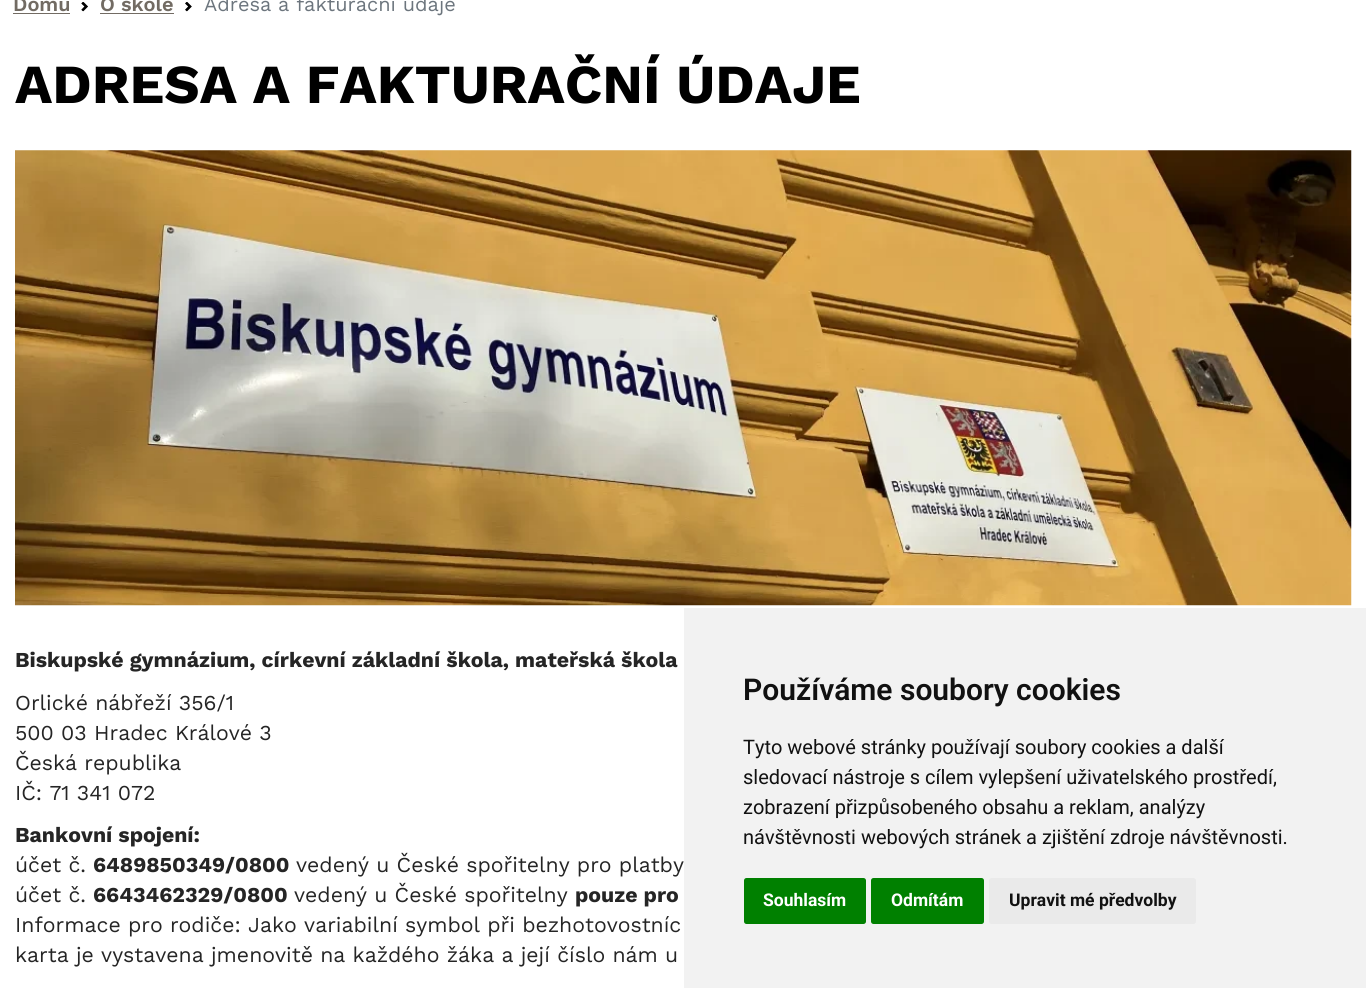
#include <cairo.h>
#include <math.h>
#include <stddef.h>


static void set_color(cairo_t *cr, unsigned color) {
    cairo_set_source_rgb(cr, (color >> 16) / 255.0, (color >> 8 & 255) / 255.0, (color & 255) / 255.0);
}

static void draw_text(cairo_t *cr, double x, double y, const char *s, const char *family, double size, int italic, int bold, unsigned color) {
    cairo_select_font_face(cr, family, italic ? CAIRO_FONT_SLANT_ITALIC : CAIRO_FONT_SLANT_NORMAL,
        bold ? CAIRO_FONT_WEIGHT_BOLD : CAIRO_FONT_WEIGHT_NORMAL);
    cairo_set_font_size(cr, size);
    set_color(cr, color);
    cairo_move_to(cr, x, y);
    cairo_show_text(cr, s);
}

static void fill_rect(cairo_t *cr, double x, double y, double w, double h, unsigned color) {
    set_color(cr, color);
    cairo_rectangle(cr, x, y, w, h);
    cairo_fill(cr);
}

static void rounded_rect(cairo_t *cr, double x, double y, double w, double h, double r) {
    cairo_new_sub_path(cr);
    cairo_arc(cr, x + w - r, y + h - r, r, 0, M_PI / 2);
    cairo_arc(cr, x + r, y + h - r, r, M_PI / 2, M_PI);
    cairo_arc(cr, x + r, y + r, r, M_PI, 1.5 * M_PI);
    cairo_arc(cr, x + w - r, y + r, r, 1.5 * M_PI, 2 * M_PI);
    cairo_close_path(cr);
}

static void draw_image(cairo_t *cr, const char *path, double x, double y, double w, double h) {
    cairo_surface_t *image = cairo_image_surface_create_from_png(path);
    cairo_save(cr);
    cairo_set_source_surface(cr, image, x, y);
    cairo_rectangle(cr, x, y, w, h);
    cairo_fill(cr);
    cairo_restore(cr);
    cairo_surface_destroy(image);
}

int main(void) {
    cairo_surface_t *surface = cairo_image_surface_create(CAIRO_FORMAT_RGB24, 1366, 988);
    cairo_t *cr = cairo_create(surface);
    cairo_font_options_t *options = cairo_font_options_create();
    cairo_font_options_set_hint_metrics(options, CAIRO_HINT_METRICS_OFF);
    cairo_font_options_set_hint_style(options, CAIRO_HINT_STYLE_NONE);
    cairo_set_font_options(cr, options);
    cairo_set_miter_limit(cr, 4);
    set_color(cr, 0xFFFFFF);
    cairo_paint(cr);
    draw_text(cr, 13, 11, "Domů", "Work Sans SemiBold", 20, 0, 0, 0x726B63);
    fill_rect(cr, 13, 13, 57, 1, 0x726B63);
    draw_image(cr, "assets/img1.png", 81, 2, 7, 10);
    draw_text(cr, 100, 11, "O škole", "Work Sans SemiBold", 20, 0, 0, 0x726B63);
    fill_rect(cr, 100, 13, 74, 1, 0x726B63);
    draw_image(cr, "assets/img2.png", 185, 2, 7, 10);
    draw_text(cr, 204, 11, "Adresa a fakturační údaje", "Work Sans", 20, 0, 0, 0x6C757D);
    draw_text(cr, 15, 103, "ADRESA A FAKTURAČNÍ ÚDAJE", "Work Sans", 55, 0, 1, 0x000000);
    draw_image(cr, "assets/img3.png", 15, 150, 1337, 456);
    draw_text(cr, 15, 667, "Biskupské gymnázium, církevní základní škola, mateřská škola", "Work Sans", 21.25, 0, 1, 0x252525);
    draw_text(cr, 15, 710, "Orlické nábřeží 356/1", "Work Sans", 21.25, 0, 0, 0x252525);
    draw_text(cr, 15, 740, "500 03 Hradec Králové 3", "Work Sans", 21.25, 0, 0, 0x252525);
    draw_text(cr, 15, 770, "Česká republika", "Work Sans", 21.25, 0, 0, 0x252525);
    draw_text(cr, 15, 800, "IČ: 71 341 072", "Work Sans", 21.25, 0, 0, 0x252525);
    draw_text(cr, 15, 842, "Bankovní spojení:", "Work Sans", 21.25, 0, 1, 0x252525);
    draw_text(cr, 15, 872, "účet č.", "Work Sans", 21.25, 0, 0, 0x252525);
    draw_text(cr, 93, 872, "6489850349/0800", "Work Sans", 21.25, 0, 1, 0x252525);
    draw_text(cr, 296, 872, "vedený u České spořitelny pro platby", "Work Sans", 21.25, 0, 0, 0x252525);
    draw_text(cr, 15, 902, "účet č.", "Work Sans", 21.25, 0, 0, 0x252525);
    draw_text(cr, 93, 902, "6643462329/0800", "Work Sans", 21.25, 0, 1, 0x252525);
    draw_text(cr, 294, 902, "vedený u České spořitelny", "Work Sans", 21.25, 0, 0, 0x252525);
    draw_text(cr, 575, 902, "pouze pro", "Work Sans", 21.25, 0, 1, 0x252525);
    draw_text(cr, 15, 932, "Informace pro rodiče: Jako variabilní symbol při bezhotovostníc", "Work Sans", 21.25, 0, 0, 0x252525);
    draw_text(cr, 15, 962, "karta je vystavena jmenovitě na každého žáka a její číslo nám u", "Work Sans", 21.25, 0, 0, 0x252525);
    fill_rect(cr, 684, 608, 682, 380, 0xF2F2F2);
    draw_text(cr, 743, 700, "Používáme soubory cookies", "Roboto SemiBold", 30, 0, 0, 0x111111);
    draw_text(cr, 743, 754, "Tyto webové stránky používají soubory cookies a další", "Roboto", 20, 0, 0, 0x111111);
    draw_text(cr, 743, 784, "sledovací nástroje s cílem vylepšení uživatelského prostředí,", "Roboto", 20, 0, 0, 0x111111);
    draw_text(cr, 743, 814, "zobrazení přizpůsobeného obsahu a reklam, analýzy", "Roboto", 20, 0, 0, 0x111111);
    draw_text(cr, 743, 844, "návštěvnosti webových stránek a zjištění zdroje návštěvnosti.", "Roboto", 20, 0, 0, 0x111111);
    set_color(cr, 0x008000);
    rounded_rect(cr, 744, 878, 122, 46, 2.5);
    cairo_fill(cr);
    draw_text(cr, 763, 906, "Souhlasím", "Roboto", 17.5, 0, 1, 0xFFFFFF);
    set_color(cr, 0x008000);
    rounded_rect(cr, 871, 878, 113, 46, 2.5);
    cairo_fill(cr);
    draw_text(cr, 891, 906, "Odmítám", "Roboto", 17.5, 0, 1, 0xFFFFFF);
    set_color(cr, 0xEAEAEA);
    rounded_rect(cr, 989, 878, 207, 46, 2.5);
    cairo_fill(cr);
    draw_text(cr, 1009, 906, "Upravit mé předvolby", "Roboto", 17.5, 0, 1, 0x111111);
    cairo_surface_write_to_png(surface, "output.png");
    cairo_font_options_destroy(options);
    cairo_destroy(cr);
    cairo_surface_destroy(surface);
    return 0;
}
